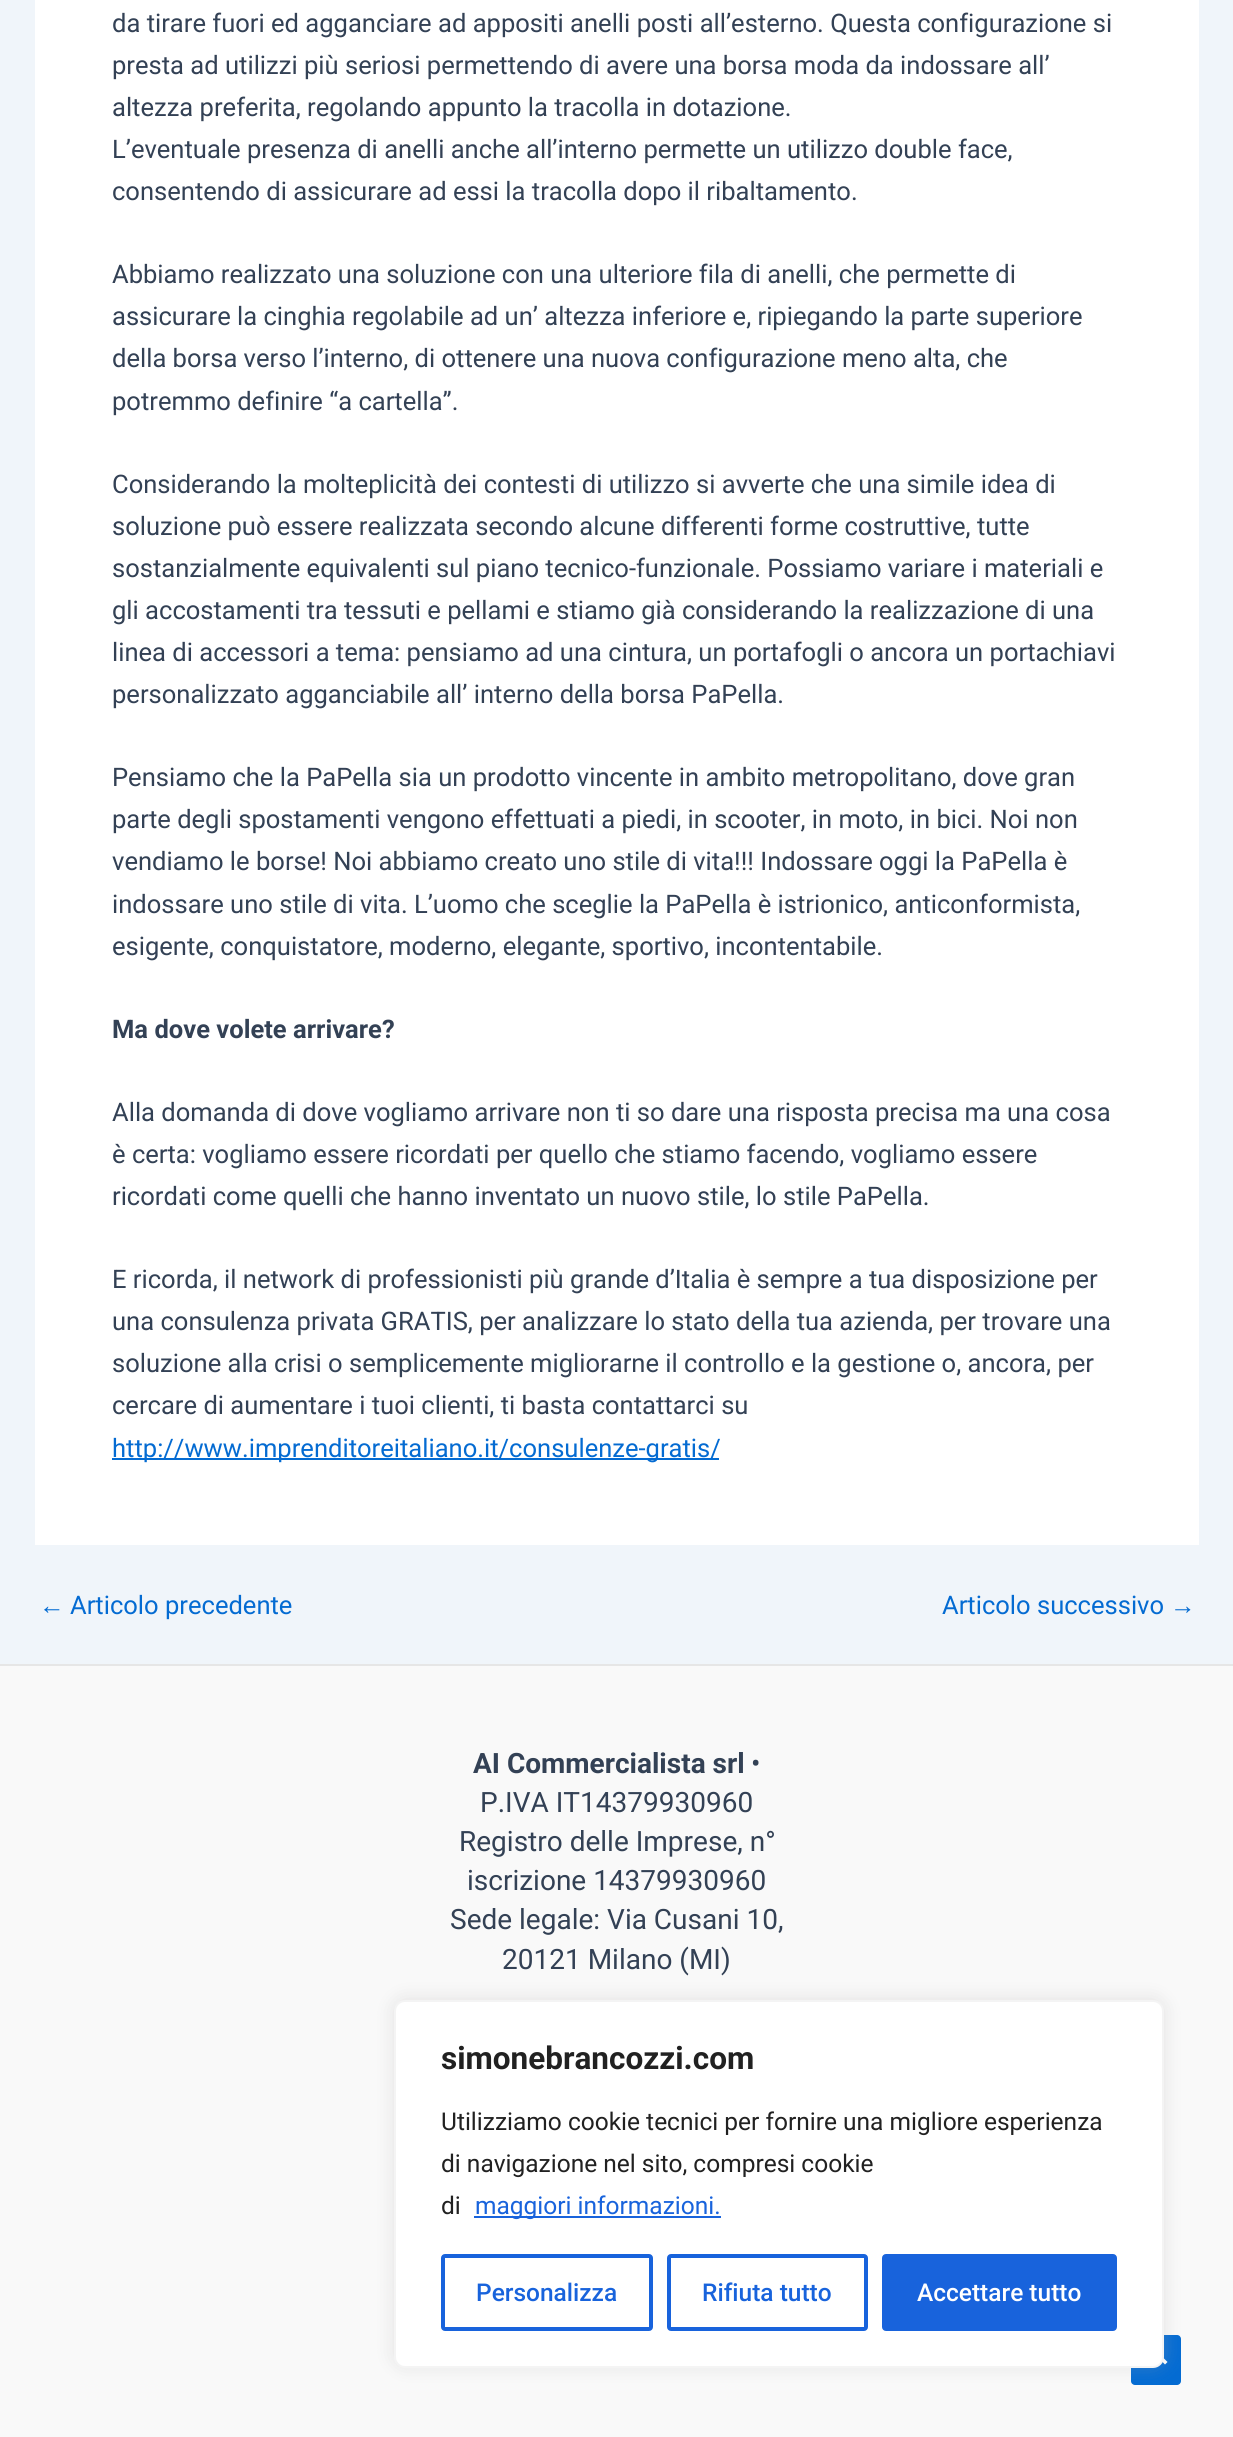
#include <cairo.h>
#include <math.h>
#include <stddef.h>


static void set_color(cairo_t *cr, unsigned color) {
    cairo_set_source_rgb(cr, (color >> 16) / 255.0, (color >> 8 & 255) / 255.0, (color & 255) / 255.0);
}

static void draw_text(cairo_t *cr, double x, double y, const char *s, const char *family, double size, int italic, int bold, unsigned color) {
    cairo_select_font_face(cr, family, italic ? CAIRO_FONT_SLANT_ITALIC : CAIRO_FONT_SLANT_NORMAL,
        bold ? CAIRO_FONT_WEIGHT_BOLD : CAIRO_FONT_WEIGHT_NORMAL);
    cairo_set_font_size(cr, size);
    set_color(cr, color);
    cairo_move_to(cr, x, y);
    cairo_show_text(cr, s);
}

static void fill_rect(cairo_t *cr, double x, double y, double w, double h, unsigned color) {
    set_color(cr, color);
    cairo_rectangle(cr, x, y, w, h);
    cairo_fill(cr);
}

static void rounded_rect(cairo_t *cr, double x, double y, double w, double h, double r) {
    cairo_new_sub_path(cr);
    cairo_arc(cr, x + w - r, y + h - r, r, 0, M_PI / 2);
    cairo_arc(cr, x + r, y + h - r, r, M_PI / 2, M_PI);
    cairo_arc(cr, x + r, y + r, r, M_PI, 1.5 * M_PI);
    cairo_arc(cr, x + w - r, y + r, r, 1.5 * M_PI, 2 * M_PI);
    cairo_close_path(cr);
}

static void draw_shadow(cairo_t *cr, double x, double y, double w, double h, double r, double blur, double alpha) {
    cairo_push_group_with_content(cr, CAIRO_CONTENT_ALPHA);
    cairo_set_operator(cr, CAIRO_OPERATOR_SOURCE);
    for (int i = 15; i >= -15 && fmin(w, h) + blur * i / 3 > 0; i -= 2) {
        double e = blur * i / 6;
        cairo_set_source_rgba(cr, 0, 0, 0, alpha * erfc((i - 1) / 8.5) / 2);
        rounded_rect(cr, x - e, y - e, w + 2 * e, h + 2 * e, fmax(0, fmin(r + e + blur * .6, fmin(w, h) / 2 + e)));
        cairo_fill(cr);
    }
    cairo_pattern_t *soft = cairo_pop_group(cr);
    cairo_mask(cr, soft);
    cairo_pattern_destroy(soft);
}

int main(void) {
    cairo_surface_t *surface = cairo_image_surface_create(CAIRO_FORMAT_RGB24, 1233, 2437);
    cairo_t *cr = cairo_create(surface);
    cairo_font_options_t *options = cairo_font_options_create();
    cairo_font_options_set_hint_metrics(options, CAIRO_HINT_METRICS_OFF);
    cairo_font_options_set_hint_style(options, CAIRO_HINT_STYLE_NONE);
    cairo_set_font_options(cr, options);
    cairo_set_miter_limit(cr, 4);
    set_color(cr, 0xF0F5FA);
    cairo_paint(cr);
    fill_rect(cr, 35, 0, 1164, 1545, 0xFFFFFF);
    draw_text(cr, 112, 32, "da tirare fuori ed agganciare ad appositi anelli posti all’esterno. Questa configurazione si", "Roboto", 25.55, 0, 0, 0x334155);
    draw_text(cr, 112, 74, "presta ad utilizzi più seriosi permettendo di avere una borsa moda da indossare all’", "Roboto", 25.55, 0, 0, 0x334155);
    draw_text(cr, 112, 116, "altezza preferita, regolando appunto la tracolla in dotazione.", "Roboto", 25.55, 0, 0, 0x334155);
    draw_text(cr, 112, 158, "L’eventuale presenza di anelli anche all’interno permette un utilizzo double face,", "Roboto", 25.55, 0, 0, 0x334155);
    draw_text(cr, 112, 200, "consentendo di assicurare ad essi la tracolla dopo il ribaltamento.", "Roboto", 25.55, 0, 0, 0x334155);
    draw_text(cr, 112, 283, "Abbiamo realizzato una soluzione con una ulteriore fila di anelli, che permette di", "Roboto", 25.55, 0, 0, 0x334155);
    draw_text(cr, 112, 325, "assicurare la cinghia regolabile ad un’ altezza inferiore e, ripiegando la parte superiore", "Roboto", 25.55, 0, 0, 0x334155);
    draw_text(cr, 112, 367, "della borsa verso l’interno, di ottenere una nuova configurazione meno alta, che", "Roboto", 25.55, 0, 0, 0x334155);
    draw_text(cr, 112, 410, "potremmo definire “a cartella”.", "Roboto", 25.55, 0, 0, 0x334155);
    draw_text(cr, 112, 493, "Considerando la molteplicità dei contesti di utilizzo si avverte che una simile idea di", "Roboto", 25.55, 0, 0, 0x334155);
    draw_text(cr, 112, 535, "soluzione può essere realizzata secondo alcune differenti forme costruttive, tutte", "Roboto", 25.55, 0, 0, 0x334155);
    draw_text(cr, 112, 577, "sostanzialmente equivalenti sul piano tecnico-funzionale. Possiamo variare i materiali e", "Roboto", 25.55, 0, 0, 0x334155);
    draw_text(cr, 112, 619, "gli accostamenti tra tessuti e pellami e stiamo già considerando la realizzazione di una", "Roboto", 25.55, 0, 0, 0x334155);
    draw_text(cr, 112, 661, "linea di accessori a tema: pensiamo ad una cintura, un portafogli o ancora un portachiavi", "Roboto", 25.55, 0, 0, 0x334155);
    draw_text(cr, 112, 703, "personalizzato agganciabile all’ interno della borsa PaPella.", "Roboto", 25.55, 0, 0, 0x334155);
    draw_text(cr, 112, 786, "Pensiamo che la PaPella sia un prodotto vincente in ambito metropolitano, dove gran", "Roboto", 25.55, 0, 0, 0x334155);
    draw_text(cr, 112, 828, "parte degli spostamenti vengono effettuati a piedi, in scooter, in moto, in bici. Noi non", "Roboto", 25.55, 0, 0, 0x334155);
    draw_text(cr, 112, 870, "vendiamo le borse! Noi abbiamo creato uno stile di vita!!! Indossare oggi la PaPella è", "Roboto", 25.55, 0, 0, 0x334155);
    draw_text(cr, 112, 913, "indossare uno stile di vita. L’uomo che sceglie la PaPella è istrionico, anticonformista,", "Roboto", 25.55, 0, 0, 0x334155);
    draw_text(cr, 112, 955, "esigente, conquistatore, moderno, elegante, sportivo, incontentabile.", "Roboto", 25.55, 0, 0, 0x334155);
    draw_text(cr, 112, 1038, "Ma dove volete arrivare?", "Roboto", 25.55, 0, 1, 0x334155);
    draw_text(cr, 112, 1121, "Alla domanda di dove vogliamo arrivare non ti so dare una risposta precisa ma una cosa", "Roboto", 25.55, 0, 0, 0x334155);
    draw_text(cr, 112, 1163, "è certa: vogliamo essere ricordati per quello che stiamo facendo, vogliamo essere", "Roboto", 25.55, 0, 0, 0x334155);
    draw_text(cr, 112, 1205, "ricordati come quelli che hanno inventato un nuovo stile, lo stile PaPella.", "Roboto", 25.55, 0, 0, 0x334155);
    draw_text(cr, 112, 1288, "E ricorda, il network di professionisti più grande d’Italia è sempre a tua disposizione per", "Roboto", 25.55, 0, 0, 0x334155);
    draw_text(cr, 112, 1330, "una consulenza privata GRATIS, per analizzare lo stato della tua azienda, per trovare una", "Roboto", 25.55, 0, 0, 0x334155);
    draw_text(cr, 112, 1372, "soluzione alla crisi o semplicemente migliorarne il controllo e la gestione o, ancora, per", "Roboto", 25.55, 0, 0, 0x334155);
    draw_text(cr, 112, 1414, "cercare di aumentare i tuoi clienti, ti basta contattarci su", "Roboto", 25.55, 0, 0, 0x334155);
    fill_rect(cr, 112, 1458, 607, 2, 0x046BD2);
    draw_text(cr, 112, 1457, "http://www.imprenditoreitaliano.it/consulenze-gratis/", "Roboto", 25.55, 0, 0, 0x046BD2);
    draw_text(cr, 39, 1614, "←", "Liberation Sans", 25.55, 0, 0, 0x046BD2);
    draw_text(cr, 70, 1614, "Articolo precedente", "Roboto", 25.55, 0, 0, 0x046BD2);
    draw_text(cr, 942, 1614, "Articolo successivo", "Roboto", 25.55, 0, 0, 0x046BD2);
    draw_text(cr, 1170, 1614, "→", "Liberation Sans", 25.55, 0, 0, 0x046BD2);
    fill_rect(cr, 0, 1666, 1233, 771, 0xF9F9F9);
    fill_rect(cr, 0, 1664, 1233, 2, 0xE6E6E6);
    draw_text(cr, 473, 1773, "AI Commercialista srl", "Roboto", 28, 0, 1, 0x334155);
    draw_text(cr, 751, 1773, "•", "Roboto", 28, 0, 0, 0x334155);
    draw_text(cr, 480, 1812, "P.IVA IT14379930960", "Roboto", 28, 0, 0, 0x334155);
    draw_text(cr, 459, 1851, "Registro delle Imprese, n°", "Roboto", 28, 0, 0, 0x334155);
    draw_text(cr, 467, 1890, "iscrizione 14379930960", "Roboto", 28, 0, 0, 0x334155);
    draw_text(cr, 450, 1929, "Sede legale: Via Cusani 10,", "Roboto", 28, 0, 0, 0x334155);
    draw_text(cr, 502, 1969, "20121 Milano (MI)", "Roboto", 28, 0, 0, 0x334155);
    set_color(cr, 0x046BD2);
    rounded_rect(cr, 1131, 2335, 50, 50, 4);
    cairo_fill(cr);
    set_color(cr, 0xFFFFFF);
    cairo_new_path(cr);
    cairo_move_to(cr, 1167.5, 2362);
    cairo_line_to(cr, 1156, 2350.5);
    cairo_line_to(cr, 1144, 2362);
    cairo_line_to(cr, 1146.5, 2364.5);
    cairo_line_to(cr, 1156, 2355.5);
    cairo_line_to(cr, 1165, 2364.5);
    cairo_close_path(cr);
    cairo_fill(cr);
    set_color(cr, 0xACABAB);
    draw_shadow(cr, 394, 1999, 770, 367, 11, 9, 0.3);
    set_color(cr, 0xFFFFFF);
    rounded_rect(cr, 395, 2001, 768, 366, 10);
    cairo_fill_preserve(cr);
    set_color(cr, 0xF4F4F4);
    cairo_stroke(cr);
    draw_text(cr, 441, 2069, "simonebrancozzi.com", "Roboto", 31.5, 0, 1, 0x212121);
    draw_text(cr, 441, 2130, "Utilizziamo cookie tecnici per fornire una migliore esperienza", "Roboto", 24.5, 0, 0, 0x212121);
    draw_text(cr, 441, 2172, "di navigazione nel sito, compresi cookie", "Roboto", 24.5, 0, 0, 0x212121);
    draw_text(cr, 441, 2214, "di", "Roboto", 24.5, 0, 0, 0x212121);
    fill_rect(cr, 474, 2216, 247, 2, 0x1863DC);
    draw_text(cr, 475, 2214, "maggiori informazioni.", "Roboto", 24.5, 0, 0, 0x1863DC);
    rounded_rect(cr, 443, 2256, 208, 73, 2);
    cairo_set_line_width(cr, 4);
    cairo_stroke(cr);
    draw_text(cr, 476, 2301, "Personalizza", "Roboto Medium", 24.5, 0, 0, 0x1863DC);
    rounded_rect(cr, 669, 2256, 197, 73, 2);
    cairo_stroke(cr);
    draw_text(cr, 702, 2301, "Rifiuta tutto", "Roboto Medium", 24.5, 0, 0, 0x1863DC);
    rounded_rect(cr, 884, 2256, 231, 73, 2);
    cairo_fill_preserve(cr);
    cairo_stroke(cr);
    draw_text(cr, 917, 2301, "Accettare tutto", "Roboto Medium", 24.5, 0, 0, 0xFFFFFF);
    cairo_surface_write_to_png(surface, "output.png");
    cairo_font_options_destroy(options);
    cairo_destroy(cr);
    cairo_surface_destroy(surface);
    return 0;
}
